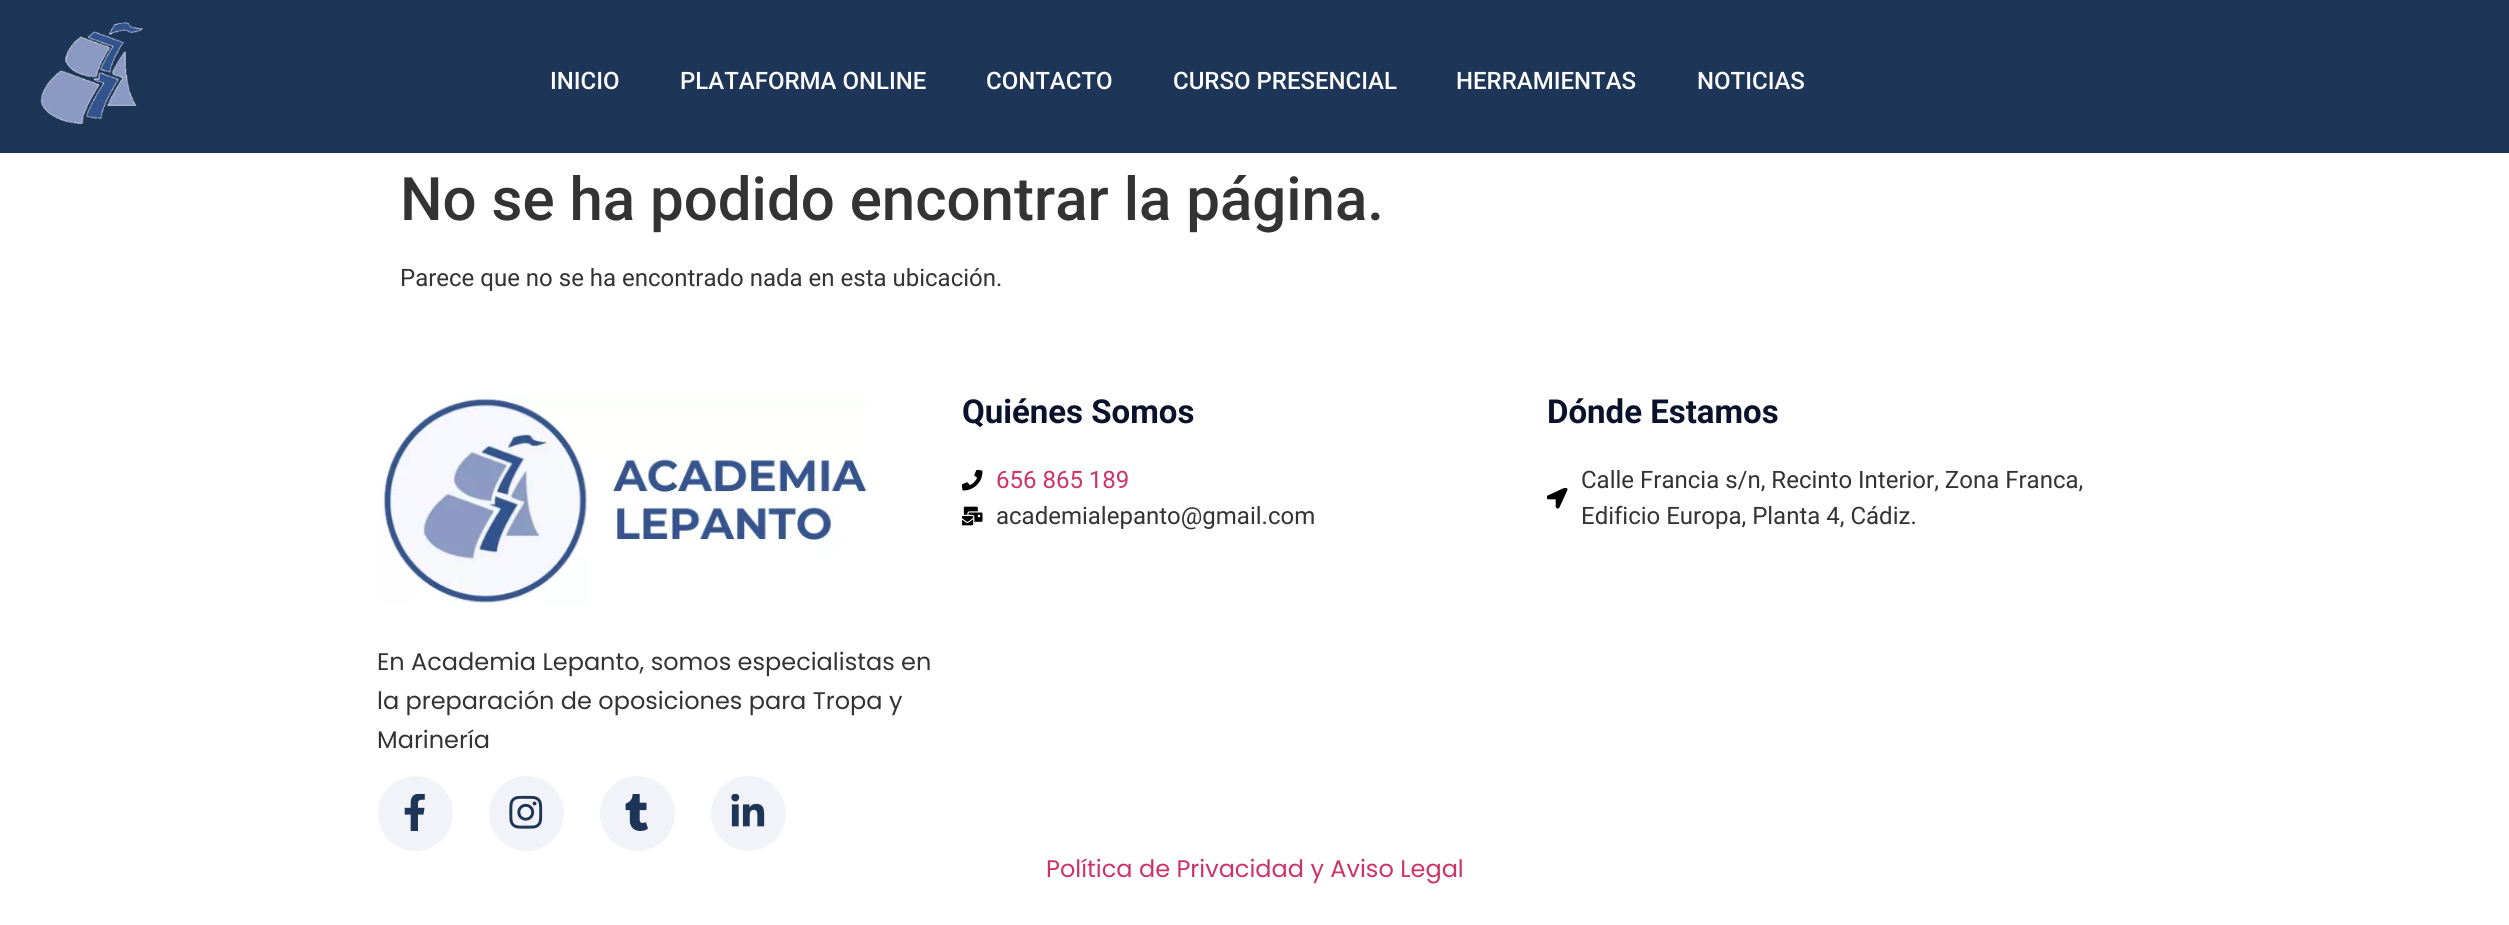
#include <cairo.h>
#include <math.h>
#include <stddef.h>


static void set_color(cairo_t *cr, unsigned color) {
    cairo_set_source_rgb(cr, (color >> 16) / 255.0, (color >> 8 & 255) / 255.0, (color & 255) / 255.0);
}

static void draw_text(cairo_t *cr, double x, double y, const char *s, const char *family, double size, int italic, int bold, unsigned color) {
    cairo_select_font_face(cr, family, italic ? CAIRO_FONT_SLANT_ITALIC : CAIRO_FONT_SLANT_NORMAL,
        bold ? CAIRO_FONT_WEIGHT_BOLD : CAIRO_FONT_WEIGHT_NORMAL);
    cairo_set_font_size(cr, size);
    set_color(cr, color);
    cairo_move_to(cr, x, y);
    cairo_show_text(cr, s);
}

static void fill_rect(cairo_t *cr, double x, double y, double w, double h, unsigned color) {
    set_color(cr, color);
    cairo_rectangle(cr, x, y, w, h);
    cairo_fill(cr);
}

static void draw_image(cairo_t *cr, const char *path, double x, double y, double w, double h) {
    cairo_surface_t *image = cairo_image_surface_create_from_png(path);
    cairo_save(cr);
    cairo_set_source_surface(cr, image, x, y);
    cairo_rectangle(cr, x, y, w, h);
    cairo_fill(cr);
    cairo_restore(cr);
    cairo_surface_destroy(image);
}

int main(void) {
    cairo_surface_t *surface = cairo_image_surface_create(CAIRO_FORMAT_RGB24, 2509, 925);
    cairo_t *cr = cairo_create(surface);
    cairo_font_options_t *options = cairo_font_options_create();
    cairo_font_options_set_hint_metrics(options, CAIRO_HINT_METRICS_OFF);
    cairo_font_options_set_hint_style(options, CAIRO_HINT_STYLE_NONE);
    cairo_set_font_options(cr, options);
    cairo_set_miter_limit(cr, 4);
    set_color(cr, 0xFFFFFF);
    cairo_paint(cr);
    fill_rect(cr, 0, 0, 2509, 153, 0x1D3557);
    draw_image(cr, "assets/img1.png", 40, 22, 103, 102);
    draw_text(cr, 550, 89, "INICIO", "Roboto Medium", 24, 0, 0, 0xFDFDFD);
    draw_text(cr, 680, 89, "PLATAFORMA ONLINE", "Roboto Medium", 24, 0, 0, 0xFDFDFD);
    draw_text(cr, 986, 89, "CONTACTO", "Roboto Medium", 24, 0, 0, 0xFDFDFD);
    draw_text(cr, 1173, 89, "CURSO PRESENCIAL", "Roboto Medium", 24, 0, 0, 0xFDFDFD);
    draw_text(cr, 1456, 89, "HERRAMIENTAS", "Roboto Medium", 24, 0, 0, 0xFDFDFD);
    draw_text(cr, 1697, 89, "NOTICIAS", "Roboto Medium", 24, 0, 0, 0xFDFDFD);
    draw_text(cr, 400, 220, "No se ha podido encontrar la página.", "Roboto Medium", 60, 0, 0, 0x333333);
    draw_text(cr, 400, 286, "Parece que no se ha encontrado nada en esta ubicación.", "Roboto", 24, 0, 0, 0x333333);
    draw_text(cr, 962, 423, "Quiénes Somos", "Roboto", 33, 0, 1, 0x0A122B);
    draw_image(cr, "assets/img2.png", 962, 470, 21, 21);
    draw_text(cr, 996, 488, "656 865 189", "Roboto", 24, 0, 0, 0xCC3366);
    draw_image(cr, "assets/img3.png", 962, 506, 21, 20);
    draw_text(cr, 996, 524, "academialepanto@gmail.com", "Roboto", 24, 0, 0, 0x333333);
    draw_text(cr, 1547, 423, "Dónde Estamos", "Roboto", 33, 0, 1, 0x0A122B);
    draw_image(cr, "assets/img4.png", 1547, 488, 21, 21);
    draw_text(cr, 1581, 488, "Calle Francia s/n, Recinto Interior, Zona Franca,", "Roboto", 24, 0, 0, 0x333333);
    draw_text(cr, 1581, 524, "Edificio Europa, Planta 4, Cádiz.", "Roboto", 24, 0, 0, 0x333333);
    draw_image(cr, "assets/img5.png", 382, 394, 485, 212);
    draw_text(cr, 377, 670, "En Academia Lepanto, somos especialistas en", "Poppins", 24, 0, 0, 0x333333);
    draw_text(cr, 377, 709, "la preparación de oposiciones para Tropa y", "Poppins", 24, 0, 0, 0x333333);
    draw_text(cr, 377, 748, "Marinería", "Poppins", 24, 0, 0, 0x333333);
    set_color(cr, 0xF2F3F9);
    cairo_new_path(cr);
    cairo_arc(cr, 415.5, 813.5, 37.5, 0, 2 * M_PI);
    cairo_fill(cr);
    draw_image(cr, "assets/img6.png", 404, 794, 21, 37);
    cairo_arc(cr, 526.5, 813.5, 37.5, 0, 2 * M_PI);
    cairo_fill(cr);
    draw_image(cr, "assets/img7.png", 509, 795, 34, 34);
    cairo_arc(cr, 637.5, 813.5, 37.5, 0, 2 * M_PI);
    cairo_fill(cr);
    draw_image(cr, "assets/img8.png", 625, 794, 23, 37);
    cairo_arc(cr, 748.5, 813.5, 37.5, 0, 2 * M_PI);
    cairo_fill(cr);
    draw_image(cr, "assets/img9.png", 731, 794, 34, 33);
    draw_text(cr, 1046, 877, "Política de Privacidad y Aviso Legal", "Poppins", 24, 0, 0, 0xCC3366);
    cairo_surface_write_to_png(surface, "output.png");
    cairo_font_options_destroy(options);
    cairo_destroy(cr);
    cairo_surface_destroy(surface);
    return 0;
}
